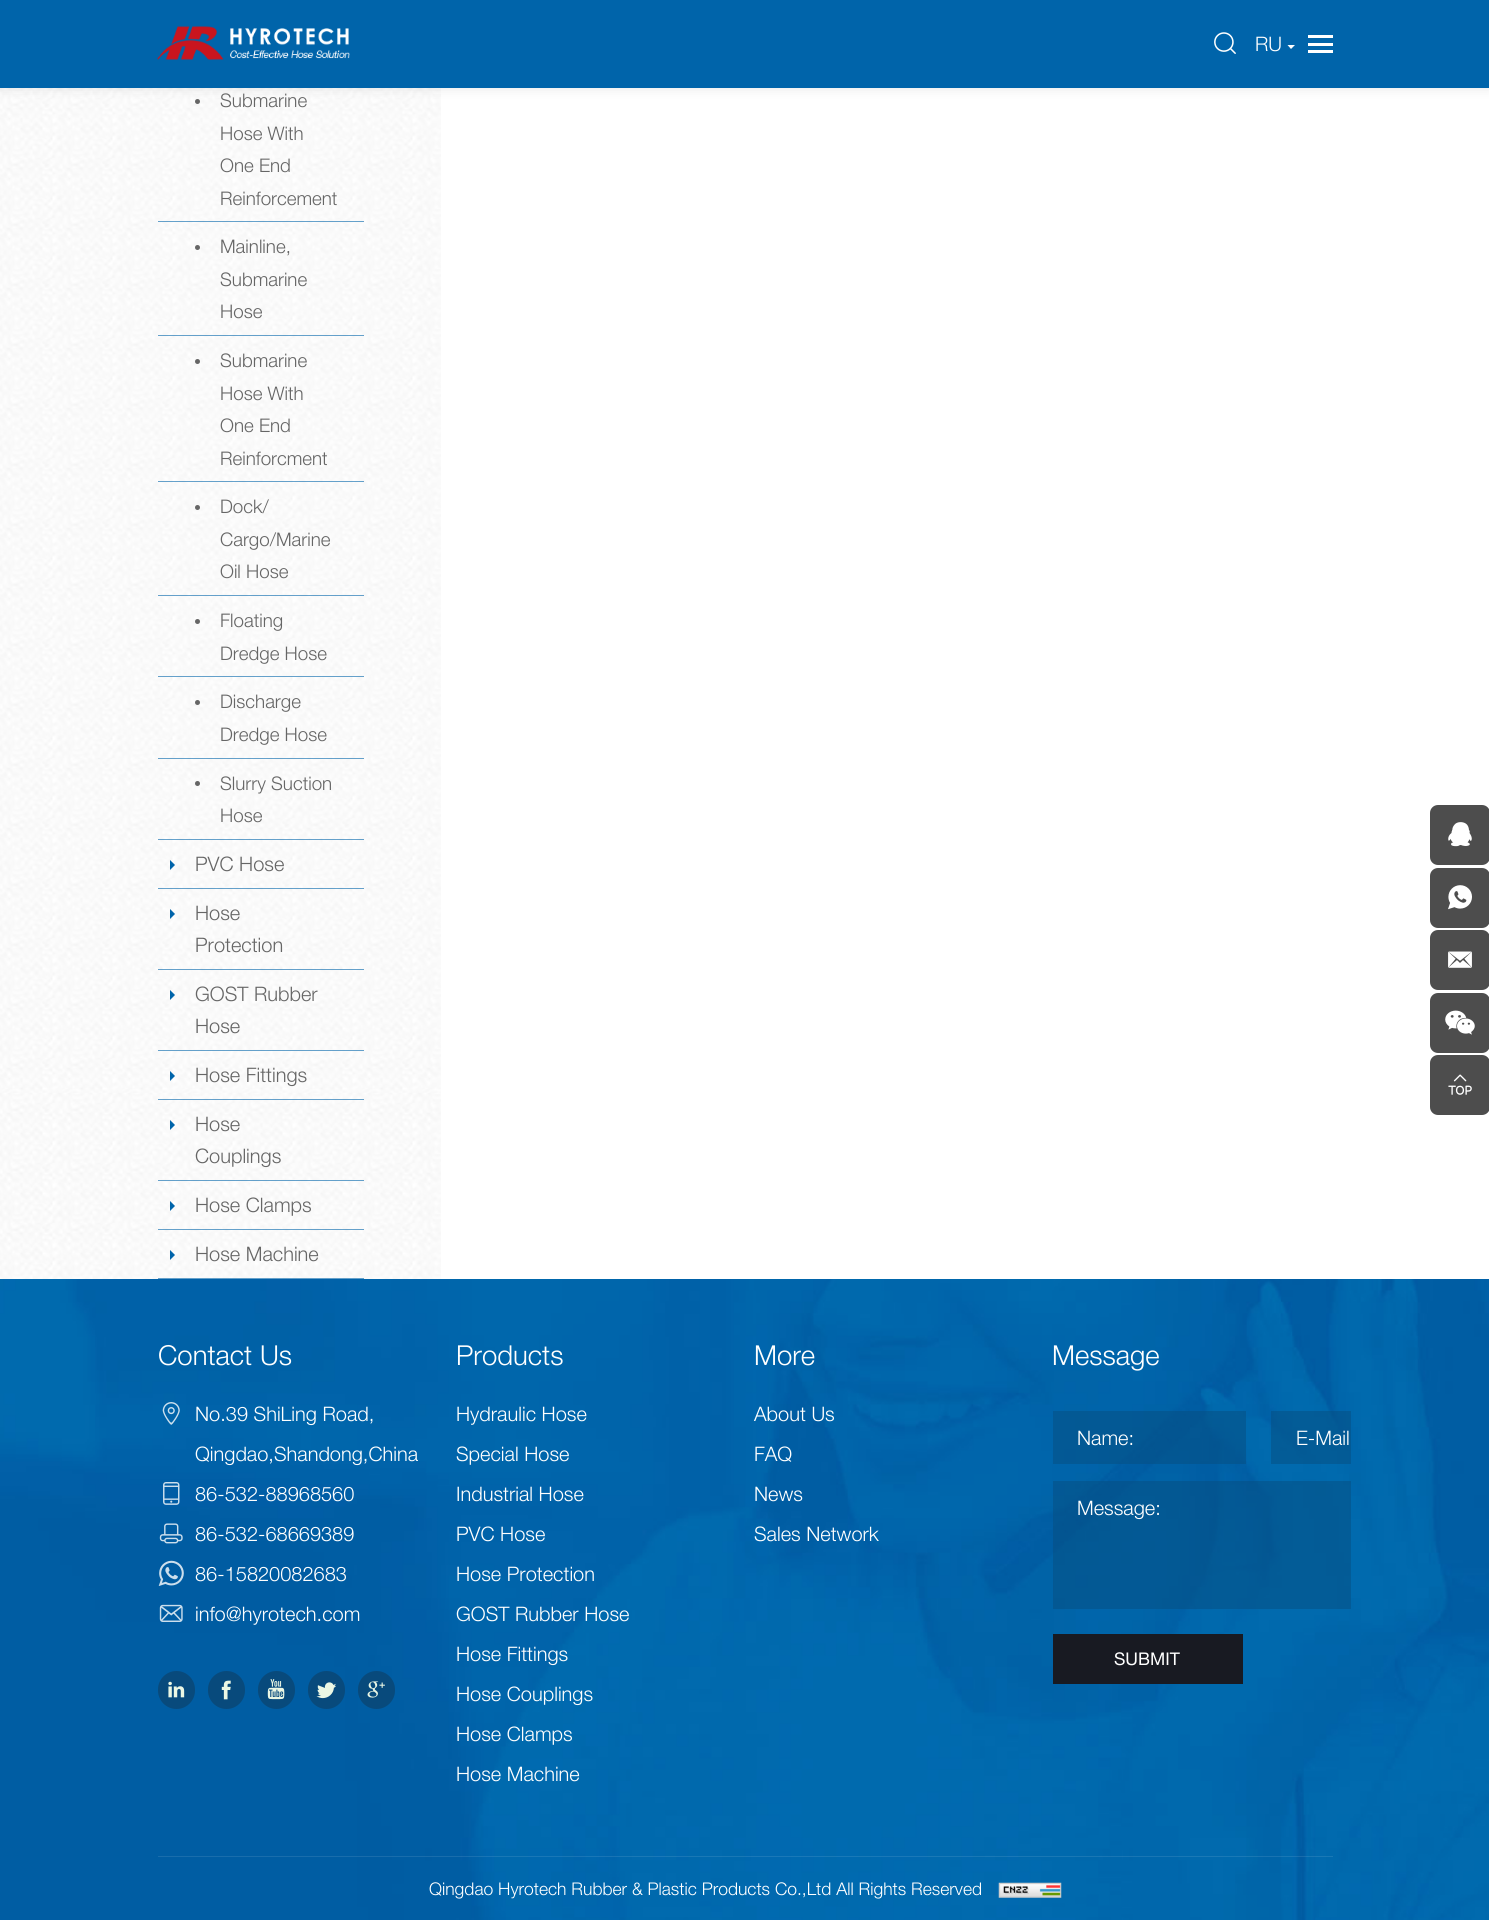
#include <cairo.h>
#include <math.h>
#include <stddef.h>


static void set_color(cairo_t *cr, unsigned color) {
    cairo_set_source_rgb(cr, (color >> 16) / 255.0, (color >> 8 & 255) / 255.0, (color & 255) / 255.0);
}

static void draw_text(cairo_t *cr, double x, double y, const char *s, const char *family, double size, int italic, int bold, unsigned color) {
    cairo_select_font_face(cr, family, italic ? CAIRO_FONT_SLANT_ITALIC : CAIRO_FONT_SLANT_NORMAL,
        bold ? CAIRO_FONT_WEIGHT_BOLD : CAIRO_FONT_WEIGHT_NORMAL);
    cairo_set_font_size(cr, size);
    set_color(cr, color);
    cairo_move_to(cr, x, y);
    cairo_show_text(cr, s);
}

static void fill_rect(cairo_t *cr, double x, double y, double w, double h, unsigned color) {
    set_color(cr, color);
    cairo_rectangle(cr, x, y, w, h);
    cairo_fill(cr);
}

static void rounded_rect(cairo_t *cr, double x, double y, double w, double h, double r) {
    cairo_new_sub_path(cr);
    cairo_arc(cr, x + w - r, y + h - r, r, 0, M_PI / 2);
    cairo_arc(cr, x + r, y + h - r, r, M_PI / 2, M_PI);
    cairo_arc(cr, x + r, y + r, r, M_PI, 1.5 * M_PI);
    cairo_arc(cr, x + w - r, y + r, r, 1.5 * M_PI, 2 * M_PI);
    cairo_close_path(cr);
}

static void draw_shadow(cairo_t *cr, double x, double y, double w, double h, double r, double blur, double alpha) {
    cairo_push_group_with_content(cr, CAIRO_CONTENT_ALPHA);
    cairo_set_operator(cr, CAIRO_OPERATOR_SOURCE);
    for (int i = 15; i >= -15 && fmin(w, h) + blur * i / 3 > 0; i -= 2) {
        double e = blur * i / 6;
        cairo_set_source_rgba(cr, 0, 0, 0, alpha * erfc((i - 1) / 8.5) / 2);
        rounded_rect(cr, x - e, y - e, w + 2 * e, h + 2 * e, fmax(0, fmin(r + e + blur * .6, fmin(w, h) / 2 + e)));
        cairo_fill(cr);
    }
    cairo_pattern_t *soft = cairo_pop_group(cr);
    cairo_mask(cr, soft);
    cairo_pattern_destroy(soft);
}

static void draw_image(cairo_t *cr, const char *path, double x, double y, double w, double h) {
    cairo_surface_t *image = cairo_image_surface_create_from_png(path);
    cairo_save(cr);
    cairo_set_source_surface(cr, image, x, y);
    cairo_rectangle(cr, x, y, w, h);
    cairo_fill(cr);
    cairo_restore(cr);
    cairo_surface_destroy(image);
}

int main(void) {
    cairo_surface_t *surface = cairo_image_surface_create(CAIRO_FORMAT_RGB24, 1489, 1920);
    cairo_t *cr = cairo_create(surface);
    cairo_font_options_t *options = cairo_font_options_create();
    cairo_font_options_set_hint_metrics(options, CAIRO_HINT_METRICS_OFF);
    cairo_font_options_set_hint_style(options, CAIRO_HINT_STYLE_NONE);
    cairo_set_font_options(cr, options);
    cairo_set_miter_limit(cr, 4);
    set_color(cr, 0xFFFFFF);
    cairo_paint(cr);
    draw_image(cr, "assets/img3.png", 0, 88, 441, 1191);
    set_color(cr, 0x666666);
    cairo_arc(cr, 197.5, 101.5, 2.5, 0, 2 * M_PI);
    cairo_fill(cr);
    set_color(cr, 0x000000);
    draw_shadow(cr, 0, 0, 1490, 88, 0, 6, 0.1);
    fill_rect(cr, 0, 0, 1489, 88, 0x0064AA);
    draw_image(cr, "assets/img1.png", 157, 26, 193, 34);
    draw_image(cr, "assets/img2.png", 1214, 32, 22, 22);
    draw_text(cr, 1255, 51, "RU", "Helvetica Neue Light", 20, 0, 0, 0xFFFFFF);
    cairo_new_path(cr);
    cairo_move_to(cr, 1287.5, 45);
    cairo_line_to(cr, 1295, 45);
    cairo_line_to(cr, 1291, 49);
    cairo_close_path(cr);
    cairo_fill(cr);
    fill_rect(cr, 1308, 35, 25, 3, 0xFFFFFF);
    fill_rect(cr, 1308, 43, 25, 3, 0xFFFFFF);
    fill_rect(cr, 1308, 50, 25, 3, 0xFFFFFF);
    cairo_set_source_rgba(cr, 0, 0.392, 0.667, 0.6);
    cairo_rectangle(cr, 158, 221, 206, 1);
    cairo_fill(cr);
    draw_text(cr, 220, 107, "Submarine", "Helvetica Neue Light", 18.75, 0, 0, 0x666666);
    draw_text(cr, 220, 140, "Hose With", "Helvetica Neue Light", 18.75, 0, 0, 0x666666);
    draw_text(cr, 220, 172, "One End", "Helvetica Neue Light", 18.75, 0, 0, 0x666666);
    draw_text(cr, 220, 205, "Reinforcement", "Helvetica Neue Light", 18.75, 0, 0, 0x666666);
    cairo_set_source_rgba(cr, 0, 0.392, 0.667, 0.6);
    cairo_rectangle(cr, 158, 335, 206, 1);
    cairo_fill(cr);
    set_color(cr, 0x666666);
    cairo_arc(cr, 197.5, 247.5, 2.5, 0, 2 * M_PI);
    cairo_fill(cr);
    draw_text(cr, 220, 253, "Mainline,", "Helvetica Neue Light", 18.75, 0, 0, 0x666666);
    draw_text(cr, 220, 286, "Submarine", "Helvetica Neue Light", 18.75, 0, 0, 0x666666);
    draw_text(cr, 220, 318, "Hose", "Helvetica Neue Light", 18.75, 0, 0, 0x666666);
    cairo_set_source_rgba(cr, 0, 0.392, 0.667, 0.6);
    cairo_rectangle(cr, 158, 481, 206, 1);
    cairo_fill(cr);
    set_color(cr, 0x666666);
    cairo_arc(cr, 197.5, 361.5, 2.5, 0, 2 * M_PI);
    cairo_fill(cr);
    draw_text(cr, 220, 367, "Submarine", "Helvetica Neue Light", 18.75, 0, 0, 0x666666);
    draw_text(cr, 220, 400, "Hose With", "Helvetica Neue Light", 18.75, 0, 0, 0x666666);
    draw_text(cr, 220, 432, "One End", "Helvetica Neue Light", 18.75, 0, 0, 0x666666);
    draw_text(cr, 220, 465, "Reinforcment", "Helvetica Neue Light", 18.75, 0, 0, 0x666666);
    cairo_set_source_rgba(cr, 0, 0.392, 0.667, 0.6);
    cairo_rectangle(cr, 158, 595, 206, 1);
    cairo_fill(cr);
    set_color(cr, 0x666666);
    cairo_arc(cr, 197.5, 507.5, 2.5, 0, 2 * M_PI);
    cairo_fill(cr);
    draw_text(cr, 220, 513, "Dock/", "Helvetica Neue Light", 18.75, 0, 0, 0x666666);
    draw_text(cr, 220, 546, "Cargo/Marine", "Helvetica Neue Light", 18.75, 0, 0, 0x666666);
    draw_text(cr, 220, 578, "Oil Hose", "Helvetica Neue Light", 18.75, 0, 0, 0x666666);
    cairo_set_source_rgba(cr, 0, 0.392, 0.667, 0.6);
    cairo_rectangle(cr, 158, 676, 206, 1);
    cairo_fill(cr);
    set_color(cr, 0x666666);
    cairo_arc(cr, 197.5, 621.5, 2.5, 0, 2 * M_PI);
    cairo_fill(cr);
    draw_text(cr, 220, 627, "Floating", "Helvetica Neue Light", 18.75, 0, 0, 0x666666);
    draw_text(cr, 220, 660, "Dredge Hose", "Helvetica Neue Light", 18.75, 0, 0, 0x666666);
    cairo_set_source_rgba(cr, 0, 0.392, 0.667, 0.6);
    cairo_rectangle(cr, 158, 758, 206, 1);
    cairo_fill(cr);
    set_color(cr, 0x666666);
    cairo_arc(cr, 197.5, 702.5, 2.5, 0, 2 * M_PI);
    cairo_fill(cr);
    draw_text(cr, 220, 708, "Discharge", "Helvetica Neue Light", 18.75, 0, 0, 0x666666);
    draw_text(cr, 220, 741, "Dredge Hose", "Helvetica Neue Light", 18.75, 0, 0, 0x666666);
    cairo_set_source_rgba(cr, 0, 0.392, 0.667, 0.6);
    cairo_rectangle(cr, 158, 839, 206, 1);
    cairo_fill(cr);
    set_color(cr, 0x666666);
    cairo_arc(cr, 197.5, 783.5, 2.5, 0, 2 * M_PI);
    cairo_fill(cr);
    draw_text(cr, 220, 790, "Slurry Suction", "Helvetica Neue Light", 18.75, 0, 0, 0x666666);
    draw_text(cr, 220, 822, "Hose", "Helvetica Neue Light", 18.75, 0, 0, 0x666666);
    cairo_set_source_rgba(cr, 0, 0.392, 0.667, 0.6);
    cairo_rectangle(cr, 158, 888, 206, 1);
    cairo_fill(cr);
    set_color(cr, 0x0064AA);
    cairo_new_path(cr);
    cairo_move_to(cr, 170, 870);
    cairo_line_to(cr, 170, 860);
    cairo_line_to(cr, 175, 865);
    cairo_close_path(cr);
    cairo_fill(cr);
    draw_text(cr, 195, 871, "PVC Hose", "Helvetica Neue Light", 20, 0, 0, 0x666666);
    cairo_set_source_rgba(cr, 0, 0.392, 0.667, 0.6);
    cairo_rectangle(cr, 158, 969, 206, 1);
    cairo_fill(cr);
    set_color(cr, 0x0064AA);
    cairo_new_path(cr);
    cairo_move_to(cr, 170, 919);
    cairo_line_to(cr, 170, 909);
    cairo_line_to(cr, 175, 914);
    cairo_close_path(cr);
    cairo_fill(cr);
    draw_text(cr, 195, 920, "Hose", "Helvetica Neue Light", 20, 0, 0, 0x666666);
    draw_text(cr, 195, 952, "Protection", "Helvetica Neue Light", 20, 0, 0, 0x666666);
    cairo_set_source_rgba(cr, 0, 0.392, 0.667, 0.6);
    cairo_rectangle(cr, 158, 1050, 206, 1);
    cairo_fill(cr);
    set_color(cr, 0x0064AA);
    cairo_new_path(cr);
    cairo_move_to(cr, 170, 1000);
    cairo_line_to(cr, 170, 990);
    cairo_line_to(cr, 175, 995);
    cairo_close_path(cr);
    cairo_fill(cr);
    draw_text(cr, 195, 1001, "GOST Rubber", "Helvetica Neue Light", 20, 0, 0, 0x666666);
    draw_text(cr, 195, 1033, "Hose", "Helvetica Neue Light", 20, 0, 0, 0x666666);
    cairo_set_source_rgba(cr, 0, 0.392, 0.667, 0.6);
    cairo_rectangle(cr, 158, 1099, 206, 1);
    cairo_fill(cr);
    set_color(cr, 0x0064AA);
    cairo_new_path(cr);
    cairo_move_to(cr, 170, 1081);
    cairo_line_to(cr, 170, 1071);
    cairo_line_to(cr, 175, 1076);
    cairo_close_path(cr);
    cairo_fill(cr);
    draw_text(cr, 195, 1082, "Hose Fittings", "Helvetica Neue Light", 20, 0, 0, 0x666666);
    cairo_set_source_rgba(cr, 0, 0.392, 0.667, 0.6);
    cairo_rectangle(cr, 158, 1180, 206, 1);
    cairo_fill(cr);
    set_color(cr, 0x0064AA);
    cairo_new_path(cr);
    cairo_move_to(cr, 170, 1130);
    cairo_line_to(cr, 170, 1120);
    cairo_line_to(cr, 175, 1125);
    cairo_close_path(cr);
    cairo_fill(cr);
    draw_text(cr, 195, 1131, "Hose", "Helvetica Neue Light", 20, 0, 0, 0x666666);
    draw_text(cr, 195, 1163, "Couplings", "Helvetica Neue Light", 20, 0, 0, 0x666666);
    cairo_set_source_rgba(cr, 0, 0.392, 0.667, 0.6);
    cairo_rectangle(cr, 158, 1229, 206, 1);
    cairo_fill(cr);
    set_color(cr, 0x0064AA);
    cairo_new_path(cr);
    cairo_move_to(cr, 170, 1211);
    cairo_line_to(cr, 170, 1201);
    cairo_line_to(cr, 175, 1206);
    cairo_close_path(cr);
    cairo_fill(cr);
    draw_text(cr, 195, 1212, "Hose Clamps", "Helvetica Neue Light", 20, 0, 0, 0x666666);
    cairo_set_source_rgba(cr, 0, 0.392, 0.667, 0.6);
    cairo_rectangle(cr, 158, 1278, 206, 1);
    cairo_fill(cr);
    set_color(cr, 0x0064AA);
    cairo_new_path(cr);
    cairo_move_to(cr, 170, 1260);
    cairo_line_to(cr, 170, 1250);
    cairo_line_to(cr, 175, 1255);
    cairo_close_path(cr);
    cairo_fill(cr);
    draw_text(cr, 195, 1261, "Hose Machine", "Helvetica Neue Light", 20, 0, 0, 0x666666);
    set_color(cr, 0x4D4D4D);
    rounded_rect(cr, 1430, 805, 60, 60, 8);
    cairo_fill(cr);
    draw_image(cr, "assets/img4.png", 1448, 822, 24, 25);
    rounded_rect(cr, 1430, 868, 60, 60, 8);
    cairo_fill(cr);
    draw_image(cr, "assets/img5.png", 1448, 885, 24, 25);
    rounded_rect(cr, 1430, 930, 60, 60, 8);
    cairo_fill(cr);
    draw_image(cr, "assets/img6.png", 1448, 951, 24, 17);
    rounded_rect(cr, 1430, 993, 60, 60, 8);
    cairo_fill(cr);
    draw_image(cr, "assets/img7.png", 1445, 1010, 30, 25);
    rounded_rect(cr, 1430, 1055, 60, 60, 8);
    cairo_fill(cr);
    draw_image(cr, "assets/img8.png", 1448, 1074, 24, 21);
    draw_image(cr, "assets/img9.png", 0, 1279, 1489, 641);
    draw_text(cr, 158, 1365, "Contact Us", "Helvetica Neue Light", 27.5, 0, 0, 0xFFFFFF);
    draw_image(cr, "assets/img10.png", 162, 1402, 18, 23);
    draw_text(cr, 195, 1421, "No.39 ShiLing Road,", "Helvetica Neue Light", 20, 0, 0, 0xFFFFFF);
    draw_text(cr, 195, 1461, "Qingdao,Shandong,China", "Helvetica Neue Light", 20, 0, 0, 0xFFFFFF);
    draw_image(cr, "assets/img11.png", 163, 1482, 17, 23);
    draw_text(cr, 195, 1501, "86-532-88968560", "Helvetica Neue Light", 20, 0, 0, 0xFFFFFF);
    draw_image(cr, "assets/img12.png", 159, 1523, 24, 21);
    draw_text(cr, 195, 1541, "86-532-68669389", "Helvetica Neue Light", 20, 0, 0, 0xFFFFFF);
    draw_image(cr, "assets/img13.png", 158, 1560, 26, 26);
    draw_text(cr, 195, 1581, "86-15820082683", "Helvetica Neue Light", 20, 0, 0, 0xFFFFFF);
    draw_image(cr, "assets/img14.png", 159, 1604, 24, 18);
    draw_text(cr, 195, 1621, "info@hyrotech.com", "Helvetica Neue Light", 20, 0, 0, 0xFFFFFF);
    set_color(cr, 0x084A7C);
    rounded_rect(cr, 158, 1671, 37, 38, 18.5);
    cairo_fill(cr);
    draw_image(cr, "assets/img15.png", 168, 1681, 17, 17);
    rounded_rect(cr, 208, 1671, 37, 38, 18.5);
    cairo_fill(cr);
    draw_image(cr, "assets/img16.png", 221, 1680, 10, 20);
    rounded_rect(cr, 258, 1671, 37, 38, 18.5);
    cairo_fill(cr);
    draw_image(cr, "assets/img17.png", 267, 1679, 18, 21);
    rounded_rect(cr, 308, 1671, 37, 38, 18.5);
    cairo_fill(cr);
    draw_image(cr, "assets/img18.png", 316, 1682, 20, 17);
    rounded_rect(cr, 358, 1671, 37, 38, 18.5);
    cairo_fill(cr);
    draw_image(cr, "assets/img19.png", 367, 1681, 18, 17);
    draw_text(cr, 456, 1365, "Products", "Helvetica Neue Light", 27.5, 0, 0, 0xFFFFFF);
    draw_text(cr, 456, 1421, "Hydraulic Hose", "Helvetica Neue Light", 20, 0, 0, 0xFFFFFF);
    draw_text(cr, 456, 1461, "Special Hose", "Helvetica Neue Light", 20, 0, 0, 0xFFFFFF);
    draw_text(cr, 456, 1501, "Industrial Hose", "Helvetica Neue Light", 20, 0, 0, 0xFFFFFF);
    draw_text(cr, 456, 1541, "PVC Hose", "Helvetica Neue Light", 20, 0, 0, 0xFFFFFF);
    draw_text(cr, 456, 1581, "Hose Protection", "Helvetica Neue Light", 20, 0, 0, 0xFFFFFF);
    draw_text(cr, 456, 1621, "GOST Rubber Hose", "Helvetica Neue Light", 20, 0, 0, 0xFFFFFF);
    draw_text(cr, 456, 1661, "Hose Fittings", "Helvetica Neue Light", 20, 0, 0, 0xFFFFFF);
    draw_text(cr, 456, 1701, "Hose Couplings", "Helvetica Neue Light", 20, 0, 0, 0xFFFFFF);
    draw_text(cr, 456, 1741, "Hose Clamps", "Helvetica Neue Light", 20, 0, 0, 0xFFFFFF);
    draw_text(cr, 456, 1781, "Hose Machine", "Helvetica Neue Light", 20, 0, 0, 0xFFFFFF);
    draw_text(cr, 754, 1365, "More", "Helvetica Neue Light", 27.5, 0, 0, 0xFFFFFF);
    draw_text(cr, 754, 1421, "About Us", "Helvetica Neue Light", 20, 0, 0, 0xFFFFFF);
    draw_text(cr, 754, 1461, "FAQ", "Helvetica Neue Light", 20, 0, 0, 0xFFFFFF);
    draw_text(cr, 754, 1501, "News", "Helvetica Neue Light", 20, 0, 0, 0xFFFFFF);
    draw_text(cr, 754, 1541, "Sales Network", "Helvetica Neue Light", 20, 0, 0, 0xFFFFFF);
    draw_text(cr, 1052, 1365, "Message", "Helvetica Neue Light", 27.5, 0, 0, 0xFFFFFF);
    cairo_set_source_rgba(cr, 0.031, 0.31, 0.506, 0.5);
    cairo_rectangle(cr, 1053, 1411, 193, 53);
    cairo_fill(cr);
    draw_text(cr, 1077, 1445, "Name:", "Helvetica Neue Light", 20, 0, 0, 0xFFFFFF);
    cairo_set_source_rgba(cr, 0.031, 0.31, 0.506, 0.5);
    cairo_rectangle(cr, 1271, 1411, 80, 53);
    cairo_fill(cr);
    draw_text(cr, 1296, 1445, "E-Mail", "Helvetica Neue Light", 20, 0, 0, 0xFFFFFF);
    cairo_set_source_rgba(cr, 0.031, 0.31, 0.506, 0.5);
    cairo_rectangle(cr, 1053, 1481, 298, 128);
    cairo_fill(cr);
    draw_text(cr, 1077, 1515, "Message:", "Helvetica Neue Light", 20, 0, 0, 0xFFFFFF);
    fill_rect(cr, 1053, 1634, 190, 50, 0x181A22);
    draw_text(cr, 1114, 1665, "SUBMIT", "Helvetica Neue", 17.5, 0, 0, 0xFFFFFF);
    cairo_set_source_rgba(cr, 1, 1, 1, 0.1);
    cairo_rectangle(cr, 158, 1856, 1175, 1);
    cairo_fill(cr);
    draw_text(cr, 429, 1895, "Qingdao Hyrotech Rubber & Plastic Products Co.,Ltd All Rights Reserved", "Helvetica Neue Light", 17.5, 0, 0, 0xFFFFFF);
    draw_image(cr, "assets/img20.png", 998, 1882, 64, 16);
    cairo_surface_write_to_png(surface, "output.png");
    cairo_font_options_destroy(options);
    cairo_destroy(cr);
    cairo_surface_destroy(surface);
    return 0;
}
